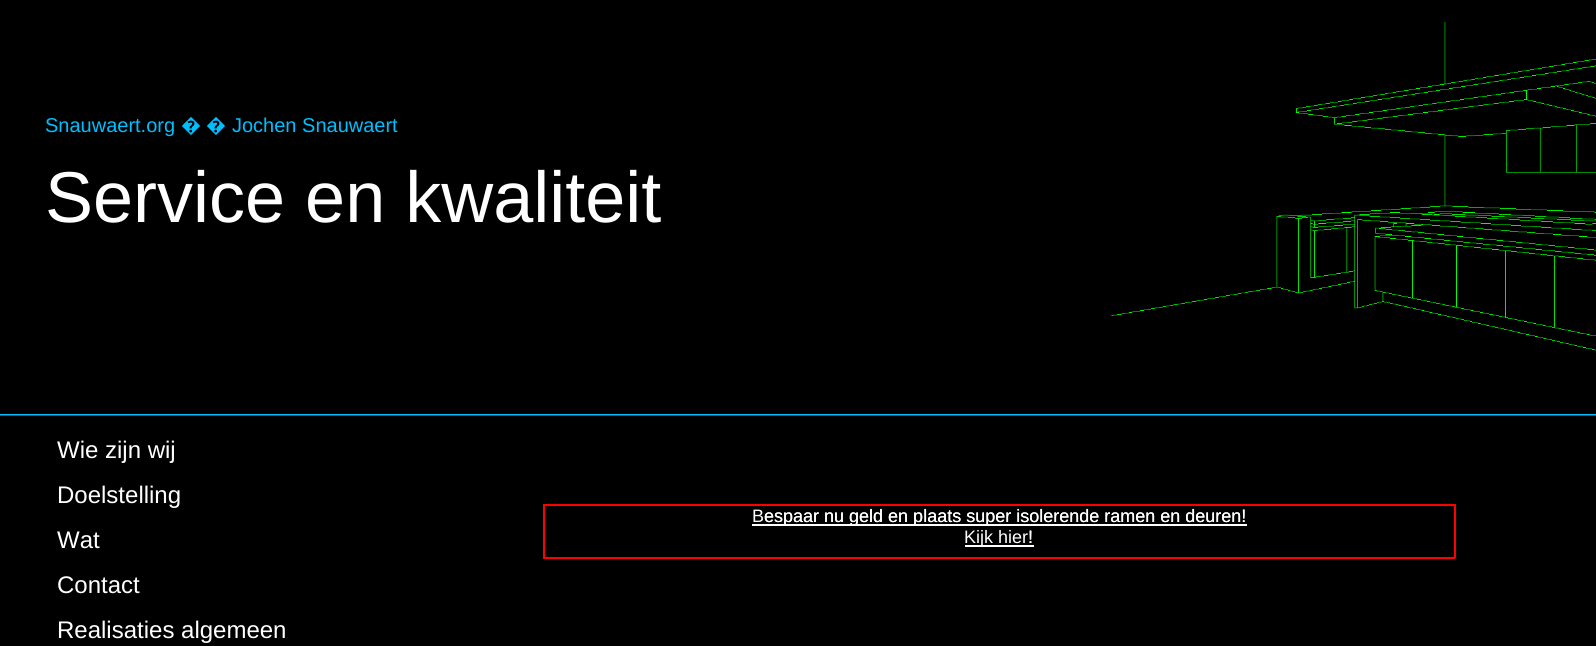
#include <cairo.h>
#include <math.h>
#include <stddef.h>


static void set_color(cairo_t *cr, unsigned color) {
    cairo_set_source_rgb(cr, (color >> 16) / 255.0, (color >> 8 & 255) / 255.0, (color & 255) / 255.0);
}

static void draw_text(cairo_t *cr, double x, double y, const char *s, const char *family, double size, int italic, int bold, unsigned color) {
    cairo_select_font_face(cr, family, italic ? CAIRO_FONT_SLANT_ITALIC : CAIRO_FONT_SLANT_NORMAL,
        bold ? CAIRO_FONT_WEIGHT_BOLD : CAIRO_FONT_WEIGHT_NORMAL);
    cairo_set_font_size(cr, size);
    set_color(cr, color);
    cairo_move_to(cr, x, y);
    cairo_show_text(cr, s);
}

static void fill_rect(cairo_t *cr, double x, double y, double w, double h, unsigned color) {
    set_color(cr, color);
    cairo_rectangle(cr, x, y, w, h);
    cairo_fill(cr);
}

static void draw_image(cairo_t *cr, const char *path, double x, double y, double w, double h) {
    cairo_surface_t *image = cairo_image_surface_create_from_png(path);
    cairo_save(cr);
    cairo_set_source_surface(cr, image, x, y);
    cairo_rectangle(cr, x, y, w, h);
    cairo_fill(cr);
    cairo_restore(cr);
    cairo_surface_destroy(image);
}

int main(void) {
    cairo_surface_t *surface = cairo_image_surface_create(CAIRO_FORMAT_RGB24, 1596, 646);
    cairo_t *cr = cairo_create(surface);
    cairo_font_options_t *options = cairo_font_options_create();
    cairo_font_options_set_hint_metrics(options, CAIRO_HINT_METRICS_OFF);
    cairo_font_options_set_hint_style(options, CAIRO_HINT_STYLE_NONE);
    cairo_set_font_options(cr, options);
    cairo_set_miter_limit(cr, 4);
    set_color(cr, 0x000000);
    cairo_paint(cr);
    draw_text(cr, 45, 132, "Snauwaert.org", "Liberation Sans", 20, 0, 0, 0x00BFFF);
    draw_text(cr, 181, 132, "�", "Noto Sans", 20, 0, 0, 0x00BFFF);
    draw_text(cr, 206, 132, "�", "Noto Sans", 20, 0, 0, 0x00BFFF);
    draw_text(cr, 232, 132, "Jochen Snauwaert", "Liberation Sans", 20, 0, 0, 0x00BFFF);
    draw_text(cr, 45, 222, "Service en kwaliteit", "Liberation Sans", 72, 0, 0, 0xFFFFFF);
    draw_image(cr, "assets/img1.png", 0, 414, 1596, 2);
    draw_image(cr, "assets/img2.png", 1111, 22, 485, 329);
    draw_text(cr, 57, 458, "Wie zijn wij", "Liberation Sans", 24, 0, 0, 0xFFFFFF);
    draw_text(cr, 57, 503, "Doelstelling", "Liberation Sans", 24, 0, 0, 0xFFFFFF);
    fill_rect(cr, 543, 504, 912, 2, 0xFF0000);
    fill_rect(cr, 1454, 504, 2, 54, 0xFF0000);
    fill_rect(cr, 543, 557, 912, 2, 0xFF0000);
    fill_rect(cr, 543, 504, 2, 54, 0xFF0000);
    fill_rect(cr, 752, 524, 495, 2, 0xFFFFFF);
    draw_text(cr, 752, 522, "Bespaar nu geld en plaats super isolerende ramen en deuren!", "Liberation Sans", 18, 0, 0, 0xFFFFFF);
    fill_rect(cr, 965, 545, 69, 2, 0xFFFFFF);
    draw_text(cr, 964, 543, "Kijk hier!", "Liberation Sans", 18, 0, 0, 0xFFFFFF);
    draw_text(cr, 57, 638, "Realisaties algemeen", "Liberation Sans", 24, 0, 0, 0xFFFFFF);
    draw_text(cr, 57, 548, "Wat", "Liberation Sans", 24, 0, 0, 0xFFFFFF);
    draw_text(cr, 57, 593, "Contact", "Liberation Sans", 24, 0, 0, 0xFFFFFF);
    draw_text(cr, 764, 522, "espaar nu geld en plaats super isolerende ramen en deuren!", "Liberation Sans", 18, 0, 0, 0xFFFFFF);
    draw_text(cr, 1028, 543, "!", "Liberation Sans", 18, 0, 0, 0xFFFFFF);
    cairo_surface_write_to_png(surface, "output.png");
    cairo_font_options_destroy(options);
    cairo_destroy(cr);
    cairo_surface_destroy(surface);
    return 0;
}
